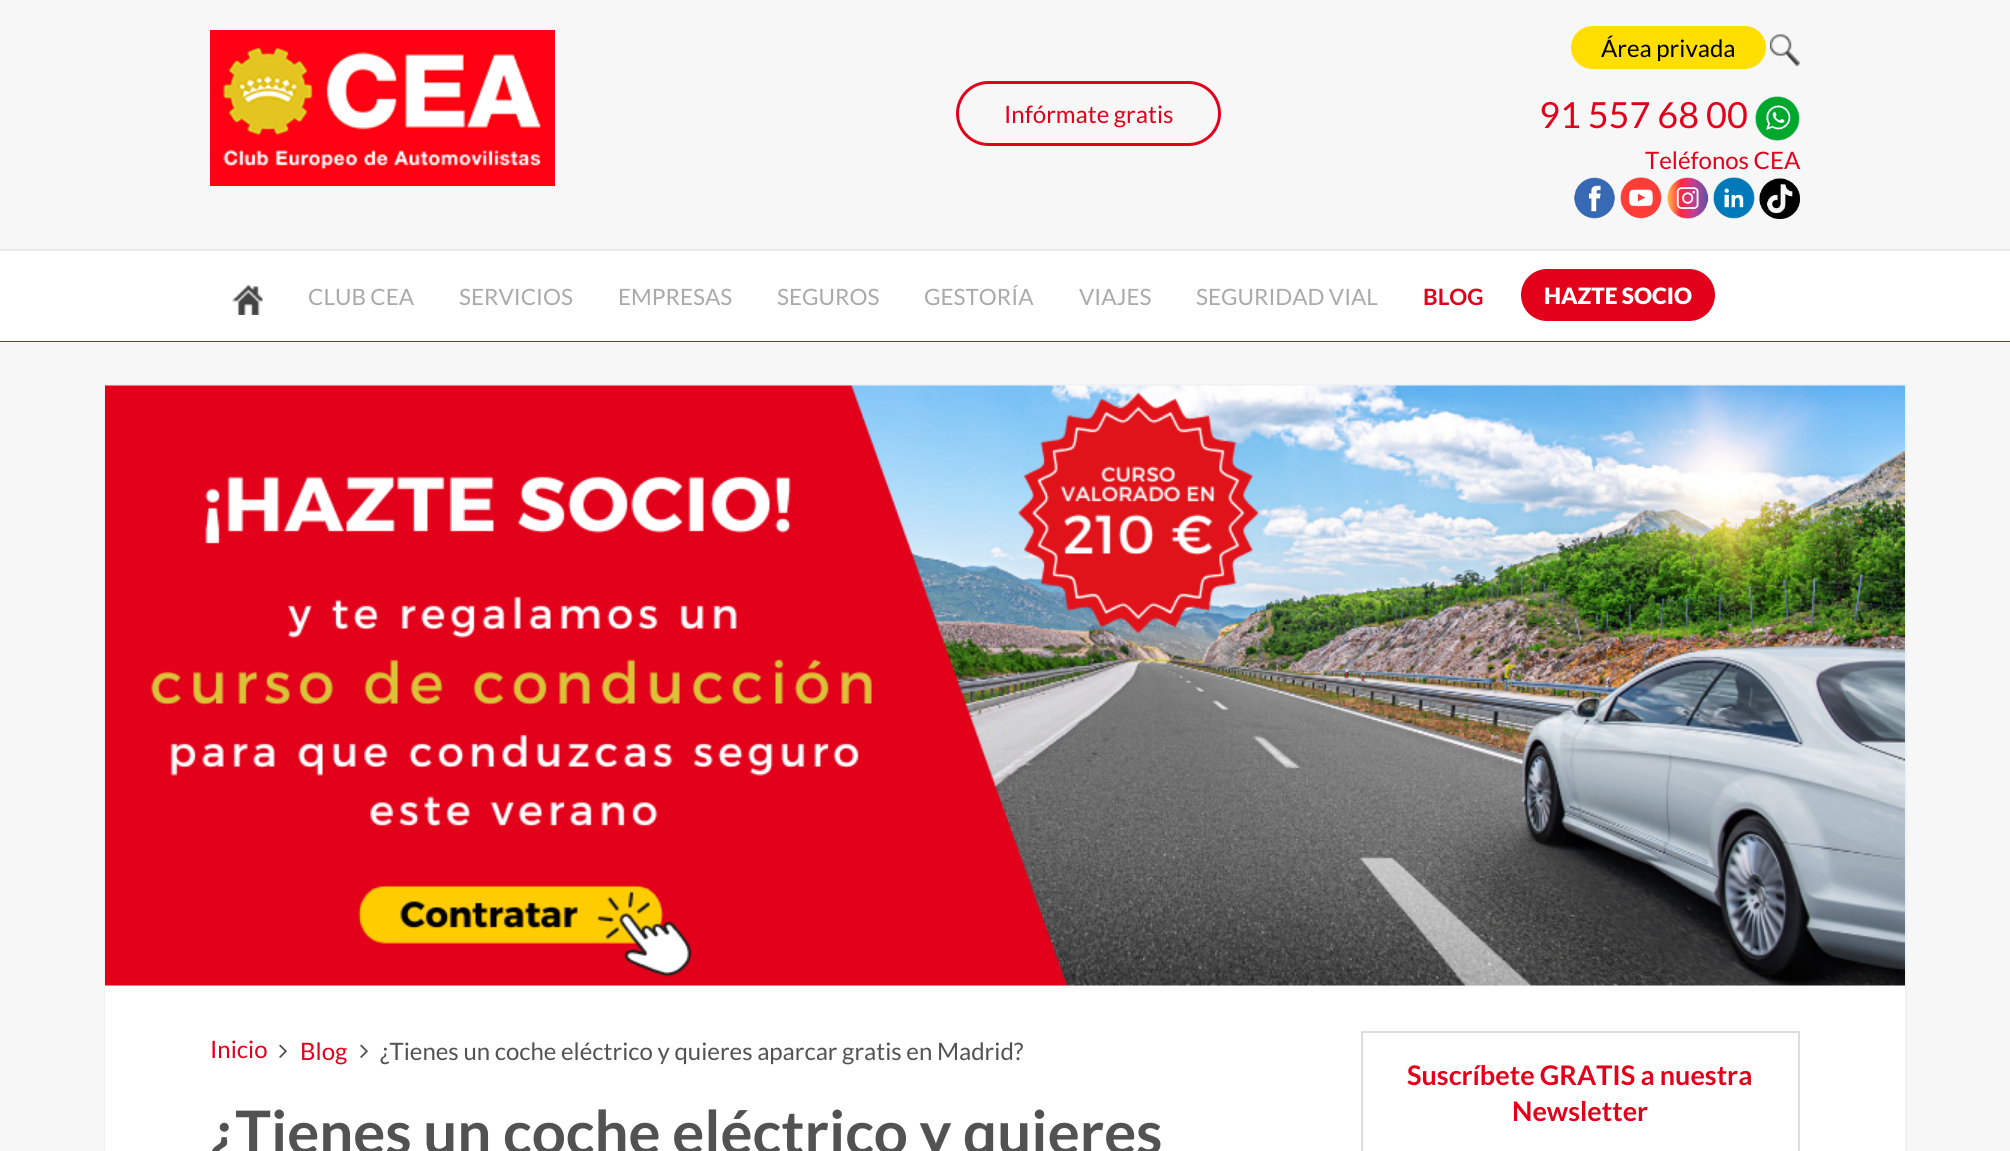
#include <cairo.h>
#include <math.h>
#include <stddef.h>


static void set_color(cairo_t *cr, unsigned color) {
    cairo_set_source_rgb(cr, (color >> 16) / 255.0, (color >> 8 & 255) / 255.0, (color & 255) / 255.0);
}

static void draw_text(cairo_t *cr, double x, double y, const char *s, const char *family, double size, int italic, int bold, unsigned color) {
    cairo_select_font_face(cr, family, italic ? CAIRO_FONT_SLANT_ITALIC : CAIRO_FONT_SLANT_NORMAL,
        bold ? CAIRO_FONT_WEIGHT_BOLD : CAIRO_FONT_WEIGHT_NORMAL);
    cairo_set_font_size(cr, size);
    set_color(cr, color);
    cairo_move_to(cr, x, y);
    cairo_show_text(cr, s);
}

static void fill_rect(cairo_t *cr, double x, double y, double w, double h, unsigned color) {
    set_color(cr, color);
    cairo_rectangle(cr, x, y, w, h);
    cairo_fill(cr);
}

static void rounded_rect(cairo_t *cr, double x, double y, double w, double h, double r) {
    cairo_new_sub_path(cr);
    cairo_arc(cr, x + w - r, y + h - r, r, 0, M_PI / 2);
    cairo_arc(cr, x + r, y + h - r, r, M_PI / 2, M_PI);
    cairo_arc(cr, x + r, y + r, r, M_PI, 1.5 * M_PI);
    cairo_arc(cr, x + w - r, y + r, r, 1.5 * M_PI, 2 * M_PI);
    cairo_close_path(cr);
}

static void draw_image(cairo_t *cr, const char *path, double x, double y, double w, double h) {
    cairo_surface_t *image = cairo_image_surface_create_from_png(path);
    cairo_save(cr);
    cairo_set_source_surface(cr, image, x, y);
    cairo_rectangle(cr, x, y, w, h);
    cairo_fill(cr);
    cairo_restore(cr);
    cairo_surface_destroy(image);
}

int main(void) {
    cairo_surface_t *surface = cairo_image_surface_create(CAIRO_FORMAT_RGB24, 2010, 1151);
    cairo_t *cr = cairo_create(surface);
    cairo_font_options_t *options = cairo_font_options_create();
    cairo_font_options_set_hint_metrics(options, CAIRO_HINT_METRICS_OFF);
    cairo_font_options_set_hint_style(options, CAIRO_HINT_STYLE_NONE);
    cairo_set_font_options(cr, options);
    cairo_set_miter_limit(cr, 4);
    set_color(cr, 0xF7F7F7);
    cairo_paint(cr);
    draw_image(cr, "assets/img1.png", 210, 30, 345, 156);
    rounded_rect(cr, 957.5, 82.5, 262, 62, 31);
    set_color(cr, 0xE2001A);
    cairo_set_line_width(cr, 3);
    cairo_stroke(cr);
    draw_text(cr, 1004, 123, "Infórmate gratis", "Lato", 24, 0, 0, 0xE2001A);
    set_color(cr, 0xFFDE00);
    rounded_rect(cr, 1571, 26, 195, 43, 21.5);
    cairo_fill(cr);
    draw_text(cr, 1601, 57, "Área privada", "Lato", 24, 0, 0, 0x000000);
    draw_image(cr, "assets/img2.png", 1770, 34, 30, 32);
    draw_text(cr, 1539, 128, "91 557 68 00", "Lato", 36, 0, 0, 0xE2001A);
    draw_image(cr, "assets/img3.png", 1755, 96, 45, 45);
    draw_text(cr, 1645, 169, "Teléfonos CEA", "Lato", 24, 0, 0, 0xE2001A);
    draw_image(cr, "assets/img4.png", 1574, 177, 41, 42);
    draw_image(cr, "assets/img5.png", 1620, 177, 42, 42);
    draw_image(cr, "assets/img6.png", 1667, 177, 42, 42);
    draw_image(cr, "assets/img7.png", 1713, 177, 42, 42);
    draw_image(cr, "assets/img8.png", 1759, 178, 41, 41);
    fill_rect(cr, 0, 341, 2010, 1, 0xE2001A);
    fill_rect(cr, 0, 251, 2010, 90, 0xFFFFFF);
    fill_rect(cr, 0, 249, 2010, 2, 0xEAEAEA);
    draw_image(cr, "assets/img9.png", 232, 285, 31, 30);
    draw_text(cr, 308, 305, "CLUB CEA", "Lato", 22.5, 0, 0, 0xAAAAAA);
    draw_text(cr, 459, 305, "SERVICIOS", "Lato", 22.5, 0, 0, 0xAAAAAA);
    draw_text(cr, 618, 305, "EMPRESAS", "Lato", 22.5, 0, 0, 0xAAAAAA);
    draw_text(cr, 777, 305, "SEGUROS", "Lato", 22.5, 0, 0, 0xAAAAAA);
    draw_text(cr, 924, 305, "GESTORÍA", "Lato", 22.5, 0, 0, 0xAAAAAA);
    draw_text(cr, 1079, 305, "VIAJES", "Lato", 22.5, 0, 0, 0xAAAAAA);
    draw_text(cr, 1196, 305, "SEGURIDAD VIAL", "Lato", 22.5, 0, 0, 0xAAAAAA);
    draw_text(cr, 1423, 305, "BLOG", "Lato", 22.5, 0, 1, 0xE2001A);
    rounded_rect(cr, 1521, 269, 194, 52, 26);
    cairo_fill(cr);
    draw_text(cr, 1544, 304, "HAZTE SOCIO", "Lato Black", 22.5, 0, 0, 0xFFFFFF);
    cairo_rectangle(cr, 105, 385, 1801, 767);
    cairo_set_source_rgba(cr, 0.184, 0.192, 0.208, 0.03);
    cairo_set_line_width(cr, 2);
    cairo_stroke(cr);
    draw_image(cr, "assets/img10.png", 105, 385, 1800, 601);
    fill_rect(cr, 105, 986, 1800, 165, 0xFFFFFF);
    draw_text(cr, 210, 1058, "Inicio", "Lato", 24, 0, 0, 0xE2001A);
    draw_image(cr, "assets/img11.png", 279, 1044, 8, 14);
    draw_text(cr, 300, 1060, "Blog", "Lato", 24, 0, 0, 0xE2001A);
    draw_image(cr, "assets/img11.png", 360, 1044, 8, 14);
    draw_text(cr, 380, 1060, "¿Tienes un coche eléctrico y quieres aparcar gratis en Madrid?", "Lato", 24, 0, 0, 0x525252);
    draw_text(cr, 210, 1154, "¿Tienes un coche eléctrico y quieres", "Lato", 60, 0, 1, 0x525252);
    cairo_rectangle(cr, 1362, 1032, 437, 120);
    set_color(cr, 0xDDDDDD);
    cairo_stroke(cr);
    draw_text(cr, 1407, 1085, "Suscríbete GRATIS a nuestra", "Lato", 27, 0, 1, 0xE2001A);
    draw_text(cr, 1512, 1121, "Newsletter", "Lato", 27, 0, 1, 0xE2001A);
    cairo_surface_write_to_png(surface, "output.png");
    cairo_font_options_destroy(options);
    cairo_destroy(cr);
    cairo_surface_destroy(surface);
    return 0;
}
